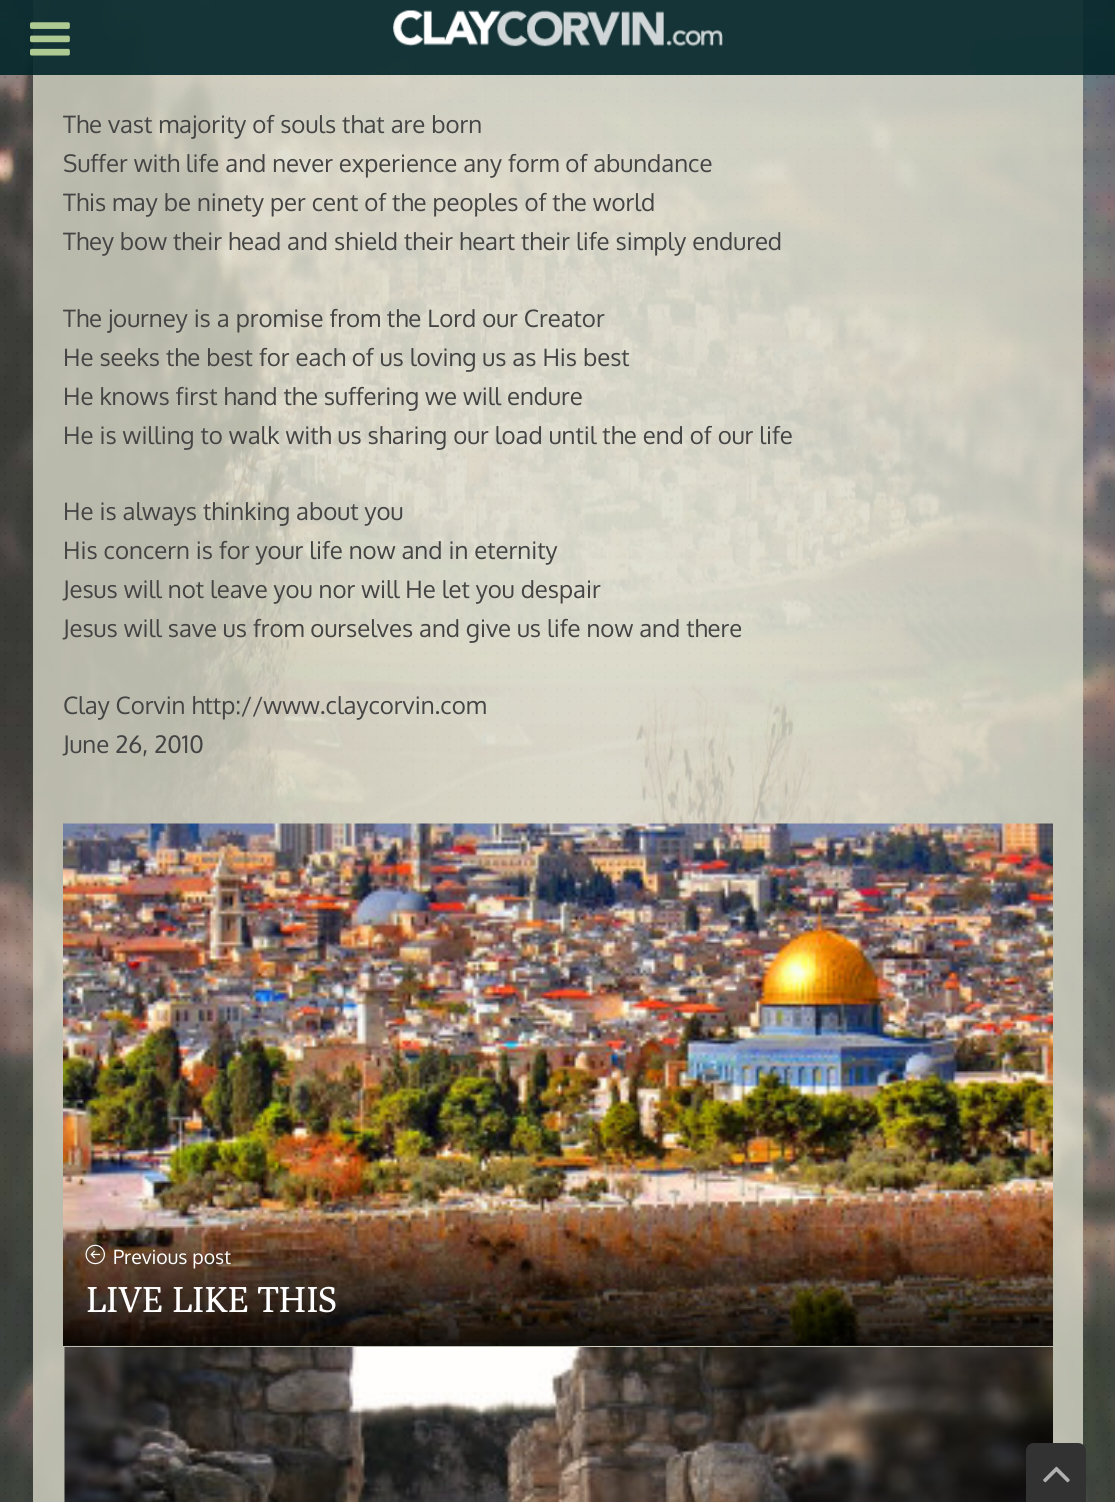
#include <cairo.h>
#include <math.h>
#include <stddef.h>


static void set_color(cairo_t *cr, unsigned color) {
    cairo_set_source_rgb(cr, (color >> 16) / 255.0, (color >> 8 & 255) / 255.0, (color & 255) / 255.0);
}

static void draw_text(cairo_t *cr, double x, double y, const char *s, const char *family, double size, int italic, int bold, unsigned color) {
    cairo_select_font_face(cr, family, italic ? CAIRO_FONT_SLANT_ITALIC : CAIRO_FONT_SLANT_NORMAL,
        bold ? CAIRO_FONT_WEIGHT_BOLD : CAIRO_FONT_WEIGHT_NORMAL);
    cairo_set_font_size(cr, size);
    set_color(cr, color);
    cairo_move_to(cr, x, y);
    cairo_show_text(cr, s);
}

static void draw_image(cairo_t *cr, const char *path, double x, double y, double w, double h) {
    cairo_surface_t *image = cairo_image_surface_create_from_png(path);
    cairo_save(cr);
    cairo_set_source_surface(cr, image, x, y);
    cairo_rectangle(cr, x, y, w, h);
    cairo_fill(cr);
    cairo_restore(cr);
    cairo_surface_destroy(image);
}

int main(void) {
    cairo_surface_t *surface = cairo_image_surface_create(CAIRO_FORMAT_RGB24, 1115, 1502);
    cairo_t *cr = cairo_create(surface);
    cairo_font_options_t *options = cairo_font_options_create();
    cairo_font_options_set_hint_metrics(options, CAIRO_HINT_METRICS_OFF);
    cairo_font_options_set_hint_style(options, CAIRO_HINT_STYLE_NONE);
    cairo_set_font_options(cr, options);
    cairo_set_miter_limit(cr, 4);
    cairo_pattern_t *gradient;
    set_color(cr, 0xFFFFFF);
    cairo_paint(cr);
    draw_image(cr, "assets/img1.png", 0, 0, 1115, 1502);
    draw_image(cr, "assets/img2.png", 4, 4, 1107, 1491);
    cairo_set_source_rgba(cr, 0, 0.141, 0.157, 0.9);
    cairo_rectangle(cr, 0, 0, 1115, 75);
    cairo_fill(cr);
    draw_image(cr, "assets/img3.png", 30, 22, 40, 34);
    draw_image(cr, "assets/img4.png", 393, 10, 330, 37);
    draw_text(cr, 63, 133, "The vast majority of souls that are born", "Oxygen", 24, 0, 0, 0x444444);
    draw_text(cr, 63, 172, "Suffer with life and never experience any form of abundance", "Oxygen", 24, 0, 0, 0x444444);
    draw_text(cr, 63, 211, "This may be ninety per cent of the peoples of the world", "Oxygen", 24, 0, 0, 0x444444);
    draw_text(cr, 63, 250, "They bow their head and shield their heart their life simply endured", "Oxygen", 24, 0, 0, 0x444444);
    draw_text(cr, 63, 327, "The journey is a promise from the Lord our Creator", "Oxygen", 24, 0, 0, 0x444444);
    draw_text(cr, 63, 366, "He seeks the best for each of us loving us as His best", "Oxygen", 24, 0, 0, 0x444444);
    draw_text(cr, 63, 405, "He knows first hand the suffering we will endure", "Oxygen", 24, 0, 0, 0x444444);
    draw_text(cr, 63, 444, "He is willing to walk with us sharing our load until the end of our life", "Oxygen", 24, 0, 0, 0x444444);
    draw_text(cr, 63, 520, "He is always thinking about you", "Oxygen", 24, 0, 0, 0x444444);
    draw_text(cr, 63, 559, "His concern is for your life now and in eternity", "Oxygen", 24, 0, 0, 0x444444);
    draw_text(cr, 63, 598, "Jesus will not leave you nor will He let you despair", "Oxygen", 24, 0, 0, 0x444444);
    draw_text(cr, 63, 637, "Jesus will save us from ourselves and give us life now and there", "Oxygen", 24, 0, 0, 0x444444);
    draw_text(cr, 63, 714, "Clay Corvin http://www.claycorvin.com", "Oxygen", 24, 0, 0, 0x444444);
    draw_text(cr, 63, 753, "June 26, 2010", "Oxygen", 24, 0, 0, 0x444444);
    draw_image(cr, "assets/img5.png", 63, 823, 990, 523);
    gradient = cairo_pattern_create_linear(558, 1200, 558, 1346);
    cairo_pattern_add_color_stop_rgba(gradient, 0, 0, 0, 0, 0);
    cairo_pattern_add_color_stop_rgba(gradient, 1, 0, 0, 0, 0.9);
    cairo_set_source(cr, gradient);
    cairo_pattern_destroy(gradient);
    cairo_rectangle(cr, 63, 1203, 990, 143);
    cairo_fill(cr);
    draw_image(cr, "assets/img6.png", 85, 1244, 20, 21);
    draw_text(cr, 113, 1264, "Previous post", "Oxygen", 19.5, 0, 0, 0xFFFFFF);
    draw_text(cr, 86, 1312, "LIVE LIKE THIS", "Poly", 36, 0, 0, 0xFFFFFF);
    draw_image(cr, "assets/img7.png", 64, 1347, 989, 155);
    set_color(cr, 0x323232);
    cairo_new_path(cr);
    cairo_move_to(cr, 1034, 1443);
    cairo_line_to(cr, 1078, 1443);
    cairo_curve_to(cr, 1082.5, 1443, 1086, 1446.5, 1086, 1451);
    cairo_line_to(cr, 1086, 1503);
    cairo_line_to(cr, 1026, 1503);
    cairo_line_to(cr, 1026, 1451);
    cairo_curve_to(cr, 1026, 1446.5, 1029.5, 1443, 1034, 1443);
    cairo_close_path(cr);
    cairo_fill(cr);
    draw_image(cr, "assets/img8.png", 1043, 1466, 27, 17);
    cairo_surface_write_to_png(surface, "output.png");
    cairo_font_options_destroy(options);
    cairo_destroy(cr);
    cairo_surface_destroy(surface);
    return 0;
}
